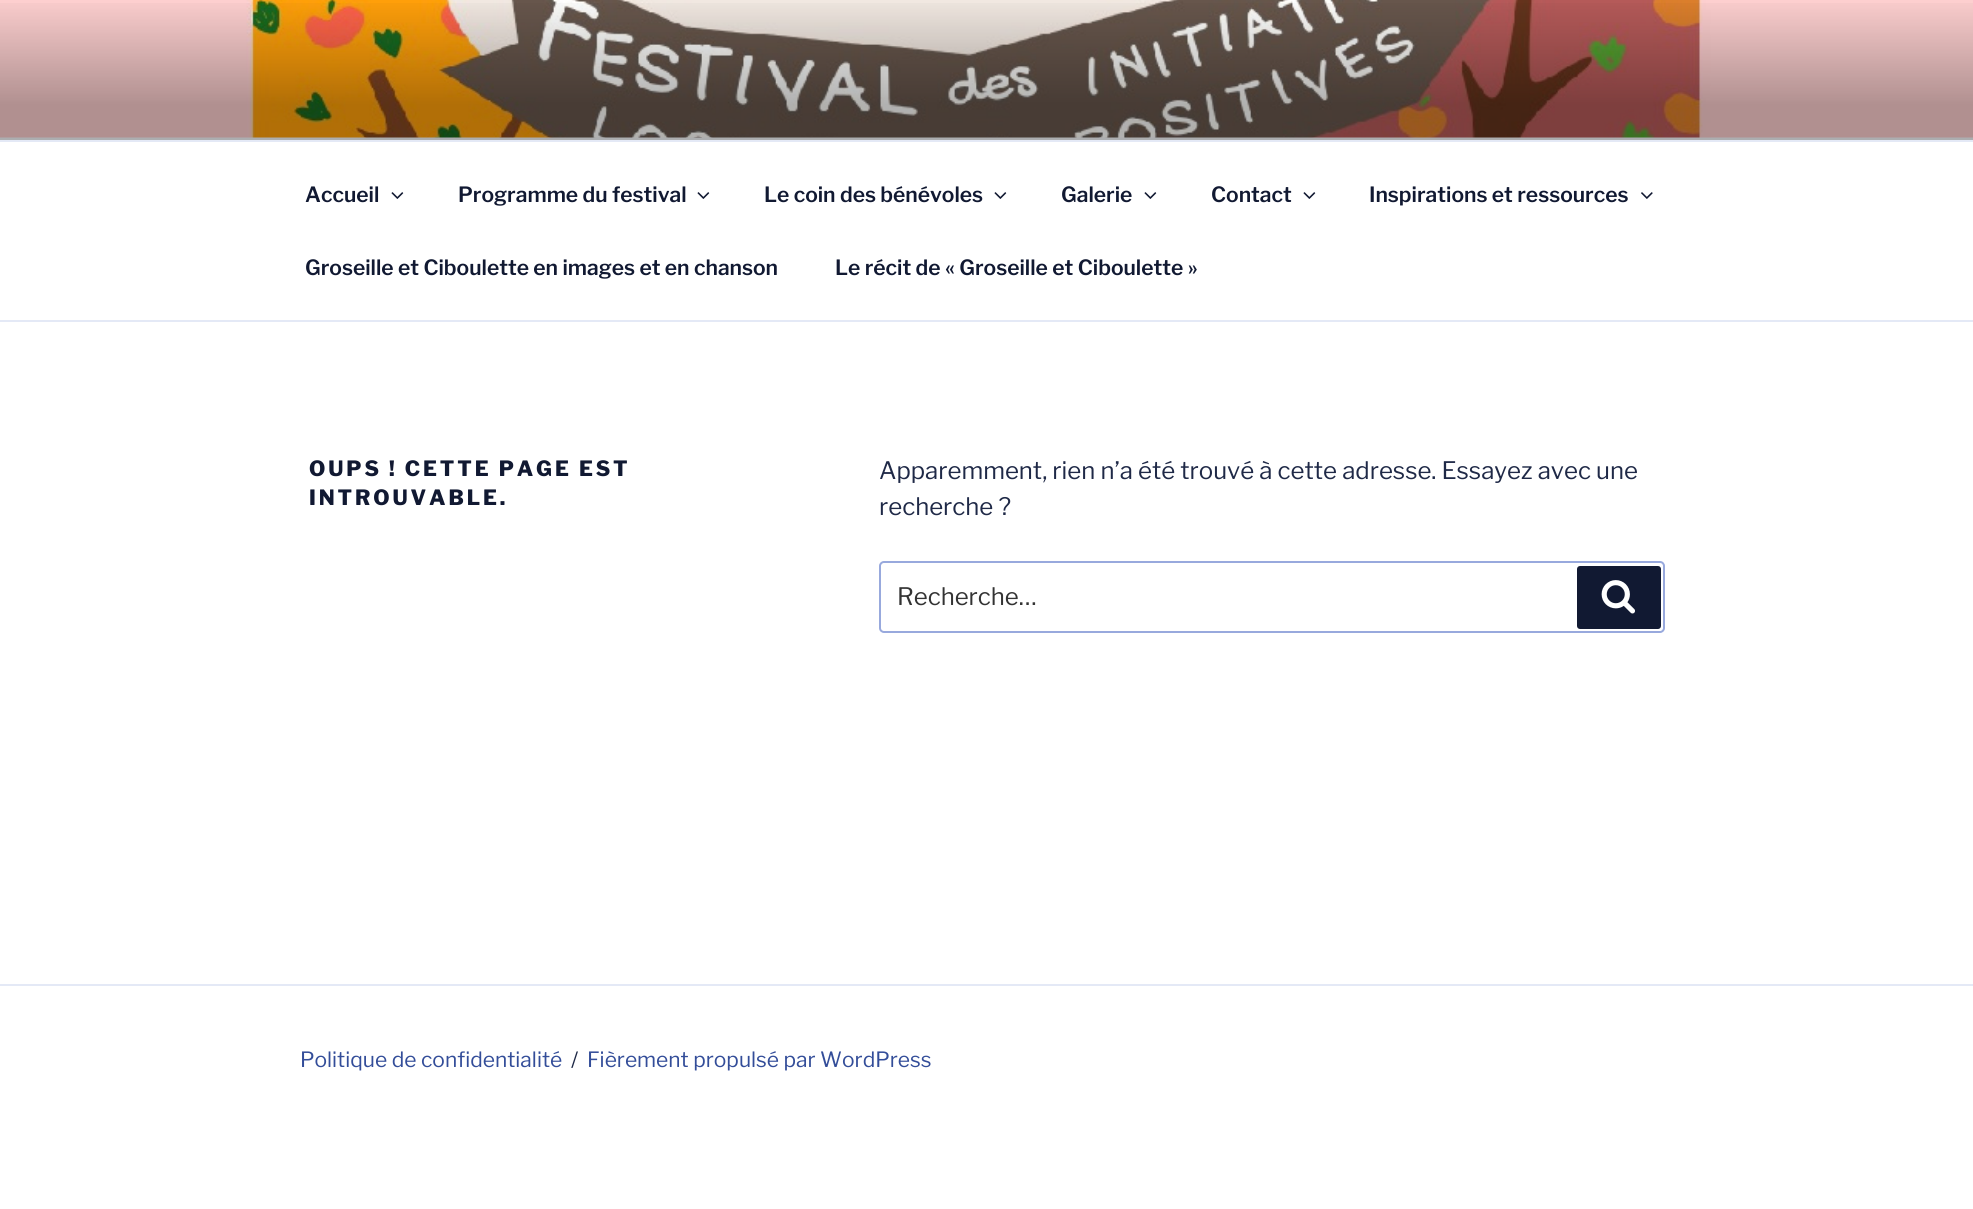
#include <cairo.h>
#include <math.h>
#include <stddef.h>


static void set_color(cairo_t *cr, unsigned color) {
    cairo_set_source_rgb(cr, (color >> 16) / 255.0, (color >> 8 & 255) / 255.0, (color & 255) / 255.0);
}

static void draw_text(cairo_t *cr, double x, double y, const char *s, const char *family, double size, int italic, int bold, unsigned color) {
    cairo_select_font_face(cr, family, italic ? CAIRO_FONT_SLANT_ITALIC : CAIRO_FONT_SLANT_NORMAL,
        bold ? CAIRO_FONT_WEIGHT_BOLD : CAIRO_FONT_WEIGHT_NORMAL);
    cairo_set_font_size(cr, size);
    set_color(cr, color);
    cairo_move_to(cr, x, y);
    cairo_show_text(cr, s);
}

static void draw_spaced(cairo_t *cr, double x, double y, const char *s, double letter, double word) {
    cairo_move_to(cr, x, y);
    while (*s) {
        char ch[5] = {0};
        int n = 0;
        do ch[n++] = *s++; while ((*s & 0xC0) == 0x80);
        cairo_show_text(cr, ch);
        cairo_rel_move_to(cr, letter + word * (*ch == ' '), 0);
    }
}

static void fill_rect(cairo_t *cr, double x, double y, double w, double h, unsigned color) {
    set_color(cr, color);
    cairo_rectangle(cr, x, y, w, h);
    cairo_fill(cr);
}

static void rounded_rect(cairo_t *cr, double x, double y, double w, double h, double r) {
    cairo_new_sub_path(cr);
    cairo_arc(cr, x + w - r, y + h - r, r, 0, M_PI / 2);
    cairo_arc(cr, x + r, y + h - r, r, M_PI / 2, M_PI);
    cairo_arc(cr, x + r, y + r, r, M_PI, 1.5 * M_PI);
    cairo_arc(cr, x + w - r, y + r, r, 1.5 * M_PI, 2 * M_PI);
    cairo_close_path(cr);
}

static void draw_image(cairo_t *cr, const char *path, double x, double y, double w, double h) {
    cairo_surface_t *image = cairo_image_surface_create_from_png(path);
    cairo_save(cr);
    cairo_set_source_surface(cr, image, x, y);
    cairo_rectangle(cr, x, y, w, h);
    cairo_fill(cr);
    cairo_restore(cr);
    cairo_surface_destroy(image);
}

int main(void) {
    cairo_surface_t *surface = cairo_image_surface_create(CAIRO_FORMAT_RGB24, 1973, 1209);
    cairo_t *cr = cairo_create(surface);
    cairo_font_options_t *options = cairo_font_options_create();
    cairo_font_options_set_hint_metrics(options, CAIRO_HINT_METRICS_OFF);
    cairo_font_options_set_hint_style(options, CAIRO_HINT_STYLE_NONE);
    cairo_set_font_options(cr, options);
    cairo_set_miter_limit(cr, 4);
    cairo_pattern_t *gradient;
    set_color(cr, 0xFFFFFF);
    cairo_paint(cr);
    fill_rect(cr, 0, 137, 1973, 3, 0xF7F9FC);
    draw_image(cr, "assets/img1.png", 0, 0, 1973, 138);
    gradient = cairo_pattern_create_linear(987, -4.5, 987, 140);
    cairo_pattern_add_color_stop_rgba(gradient, 0, 0, 0, 0, 0);
    cairo_pattern_add_color_stop_rgba(gradient, 0.75, 0, 0, 0, 0.3);
    cairo_pattern_add_color_stop_rgba(gradient, 1, 0, 0, 0, 0.3);
    cairo_set_source(cr, gradient);
    cairo_pattern_destroy(gradient);
    cairo_rectangle(cr, 0, 3, 1973, 137);
    cairo_fill(cr);
    fill_rect(cr, 0, 140, 1973, 2, 0xE4E9F6);
    fill_rect(cr, 0, 320, 1973, 2, 0xE4E9F6);
    draw_text(cr, 305, 202, "Accueil", "Libre Franklin SemiBold", 21, 0, 0, 0x111932);
    draw_image(cr, "assets/img2.png", 391, 192, 13, 7);
    draw_text(cr, 458, 202, "Programme du festival", "Libre Franklin SemiBold", 21, 0, 0, 0x111932);
    draw_image(cr, "assets/img2.png", 697, 192, 13, 7);
    draw_text(cr, 764, 202, "Le coin des bénévoles", "Libre Franklin SemiBold", 21, 0, 0, 0x111932);
    draw_image(cr, "assets/img2.png", 994, 192, 13, 7);
    draw_text(cr, 1061, 202, "Galerie", "Libre Franklin SemiBold", 21, 0, 0, 0x111932);
    draw_image(cr, "assets/img2.png", 1144, 192, 13, 7);
    draw_text(cr, 1211, 202, "Contact", "Libre Franklin SemiBold", 21, 0, 0, 0x111932);
    draw_image(cr, "assets/img2.png", 1303, 192, 13, 7);
    draw_text(cr, 1369, 202, "Inspirations et ressources", "Libre Franklin SemiBold", 21, 0, 0, 0x111932);
    draw_image(cr, "assets/img3.png", 1641, 192, 12, 7);
    draw_text(cr, 305, 275, "Groseille et Ciboulette en images et en chanson", "Libre Franklin SemiBold", 21, 0, 0, 0x111932);
    draw_text(cr, 835, 275, "Le récit de « Groseille et Ciboulette »", "Libre Franklin SemiBold", 21, 0, 0, 0x111932);
    cairo_select_font_face(cr, "Libre Franklin ExtraBold", CAIRO_FONT_SLANT_NORMAL, CAIRO_FONT_WEIGHT_NORMAL);
    draw_spaced(cr, 309, 476, "OUPS ! CETTE PAGE EST", 2.9, 0);
    draw_spaced(cr, 309, 505, "INTROUVABLE.", 2.9, 0);
    draw_text(cr, 879, 479, "Apparemment, rien n’a été trouvé à cette adresse. Essayez avec une", "Libre Franklin", 24, 0, 0, 0x1F2947);
    draw_text(cr, 879, 515, "recherche ?", "Libre Franklin", 24, 0, 0, 0x1F2947);
    rounded_rect(cr, 880, 562, 784, 70, 4);
    set_color(cr, 0x98A9DD);
    cairo_stroke(cr);
    draw_text(cr, 897, 605, "Recherche…", "Libre Franklin", 24, 0, 0, 0x333333);
    set_color(cr, 0x111932);
    rounded_rect(cr, 1577, 566, 84, 63, 3);
    cairo_fill(cr);
    draw_image(cr, "assets/img4.png", 1601, 580, 34, 34);
    fill_rect(cr, 0, 984, 1973, 2, 0xE4E9F6);
    draw_text(cr, 300, 1067, "Politique de confidentialité", "Libre Franklin", 21, 0, 0, 0x334D99);
    draw_text(cr, 571, 1067, "/", "Libre Franklin", 21, 0, 0, 0x1F2947);
    draw_text(cr, 587, 1067, "Fièrement propulsé par WordPress", "Libre Franklin", 21, 0, 0, 0x334D99);
    cairo_surface_write_to_png(surface, "output.png");
    cairo_font_options_destroy(options);
    cairo_destroy(cr);
    cairo_surface_destroy(surface);
    return 0;
}
